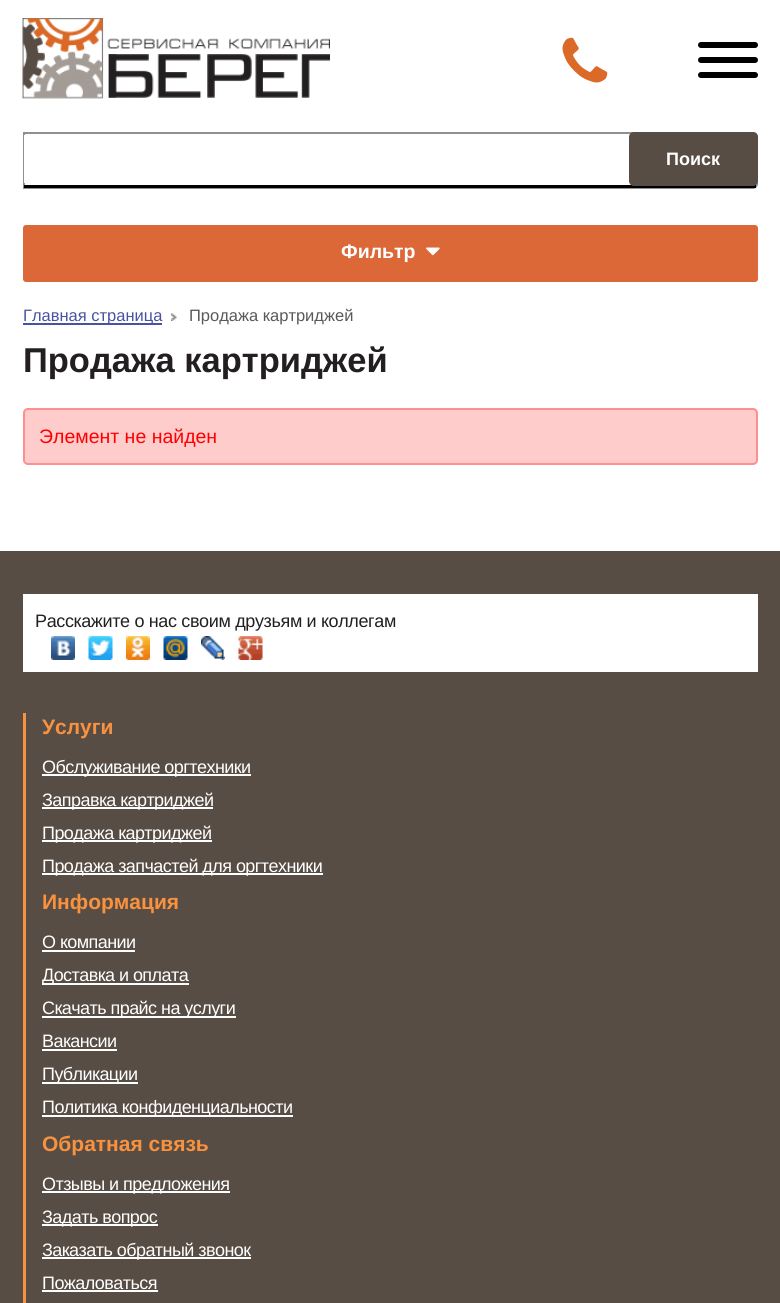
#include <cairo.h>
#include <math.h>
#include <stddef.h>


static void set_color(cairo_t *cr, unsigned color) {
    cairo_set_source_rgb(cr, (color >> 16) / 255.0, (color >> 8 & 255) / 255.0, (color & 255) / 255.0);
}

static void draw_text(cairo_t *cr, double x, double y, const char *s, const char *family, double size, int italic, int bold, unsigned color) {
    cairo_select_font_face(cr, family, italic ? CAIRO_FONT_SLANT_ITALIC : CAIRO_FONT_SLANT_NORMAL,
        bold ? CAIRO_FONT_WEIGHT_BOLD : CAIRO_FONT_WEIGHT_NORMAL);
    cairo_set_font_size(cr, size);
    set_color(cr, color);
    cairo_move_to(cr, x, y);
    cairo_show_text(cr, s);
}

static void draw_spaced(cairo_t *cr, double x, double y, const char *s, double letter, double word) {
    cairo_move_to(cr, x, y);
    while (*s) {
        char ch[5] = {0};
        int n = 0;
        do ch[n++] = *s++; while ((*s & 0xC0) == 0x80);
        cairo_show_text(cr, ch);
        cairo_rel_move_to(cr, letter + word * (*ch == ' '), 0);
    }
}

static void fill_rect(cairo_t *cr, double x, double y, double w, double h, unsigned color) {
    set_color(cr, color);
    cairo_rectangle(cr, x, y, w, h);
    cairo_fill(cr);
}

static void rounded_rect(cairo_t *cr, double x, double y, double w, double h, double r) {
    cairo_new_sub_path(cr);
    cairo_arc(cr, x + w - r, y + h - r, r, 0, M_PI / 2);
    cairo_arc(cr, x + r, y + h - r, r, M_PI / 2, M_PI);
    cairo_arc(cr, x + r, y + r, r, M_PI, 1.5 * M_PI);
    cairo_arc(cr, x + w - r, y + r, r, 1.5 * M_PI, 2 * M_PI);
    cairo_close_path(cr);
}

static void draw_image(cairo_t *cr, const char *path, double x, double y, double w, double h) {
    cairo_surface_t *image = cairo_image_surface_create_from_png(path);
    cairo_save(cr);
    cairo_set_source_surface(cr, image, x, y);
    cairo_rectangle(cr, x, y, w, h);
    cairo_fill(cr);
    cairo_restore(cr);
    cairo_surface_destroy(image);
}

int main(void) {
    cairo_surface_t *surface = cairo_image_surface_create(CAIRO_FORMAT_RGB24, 780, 1303);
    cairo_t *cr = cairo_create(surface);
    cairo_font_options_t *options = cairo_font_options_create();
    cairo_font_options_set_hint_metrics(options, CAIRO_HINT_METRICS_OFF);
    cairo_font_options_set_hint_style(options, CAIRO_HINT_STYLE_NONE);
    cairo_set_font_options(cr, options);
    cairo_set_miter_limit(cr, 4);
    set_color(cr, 0xFFFFFF);
    cairo_paint(cr);
    draw_image(cr, "assets/img1.png", 22, 18, 308, 81);
    draw_image(cr, "assets/img2.png", 562, 37, 46, 46);
    set_color(cr, 0x000000);
    rounded_rect(cr, 698, 57, 60, 6, 3);
    cairo_fill(cr);
    rounded_rect(cr, 698, 42, 60, 6, 3);
    cairo_fill(cr);
    rounded_rect(cr, 698, 72, 60, 6, 3);
    cairo_fill(cr);
    cairo_new_path(cr);
    cairo_move_to(cr, 24, 133);
    cairo_line_to(cr, 753, 133);
    cairo_curve_to(cr, 755, 133, 757, 135, 757, 137);
    cairo_line_to(cr, 757, 184);
    cairo_curve_to(cr, 757, 186, 755, 188, 753, 188);
    cairo_line_to(cr, 24, 188);
    cairo_close_path(cr);
    set_color(cr, 0x918F8F);
    cairo_stroke(cr);
    fill_rect(cr, 24, 185, 732, 3, 0x000000);
    fill_rect(cr, 24, 135, 1, 48, 0xFFFFFF);
    set_color(cr, 0x584D45);
    rounded_rect(cr, 629, 132, 129, 54, 5);
    cairo_fill(cr);
    draw_text(cr, 666, 165, "Поиск", "Liberation Sans", 18, 0, 1, 0xFFFFFF);
    set_color(cr, 0xDC6737);
    rounded_rect(cr, 23, 225, 735, 57, 3);
    cairo_fill(cr);
    draw_text(cr, 341, 258, "Фильтр", "Liberation Sans", 19.5, 0, 1, 0xFFFFFF);
    draw_image(cr, "assets/img3.png", 426, 247, 14, 9);
    fill_rect(cr, 23, 323, 139, 2, 0x4753A0);
    draw_text(cr, 23, 321, "Главная страница", "Liberation Sans", 16.5, 0, 0, 0x4753A0);
    draw_image(cr, "assets/img4.png", 171, 313, 6, 8);
    draw_text(cr, 189, 321, "Продажа картриджей", "Liberation Sans", 16.5, 0, 0, 0x59595B);
    draw_text(cr, 23, 372, "Продажа картриджей", "Liberation Sans", 34.5, 0, 1, 0x231F20);
    set_color(cr, 0xFFCCCC);
    rounded_rect(cr, 23, 408, 735, 57, 5);
    cairo_fill(cr);
    rounded_rect(cr, 24, 409, 733, 55, 4);
    cairo_set_source_rgba(cr, 1, 0, 0, 0.3);
    cairo_stroke(cr);
    draw_text(cr, 39, 443, "Элемент не найден", "Liberation Sans", 19.5, 0, 0, 0xFF0000);
    fill_rect(cr, 0, 551, 780, 752, 0x584D45);
    fill_rect(cr, 23, 594, 735, 78, 0xFFFFFF);
    cairo_set_font_size(cr, 18);
    set_color(cr, 0x231F20);
    draw_spaced(cr, 35, 627, "Расскажите о нас своим друзьям и коллегам", -0.35, 0);
    draw_image(cr, "assets/img5.png", 51, 636, 24, 24);
    draw_image(cr, "assets/img6.png", 88, 636, 25, 24);
    draw_image(cr, "assets/img7.png", 126, 636, 24, 24);
    draw_image(cr, "assets/img8.png", 163, 636, 25, 24);
    draw_image(cr, "assets/img9.png", 201, 636, 24, 24);
    draw_image(cr, "assets/img10.png", 238, 636, 25, 24);
    fill_rect(cr, 23, 713, 3, 590, 0xF9923E);
    draw_text(cr, 42, 734, "Услуги", "Liberation Sans", 21, 0, 1, 0xF9923E);
    fill_rect(cr, 42, 774, 209, 2, 0xFFFFFF);
    cairo_select_font_face(cr, "Liberation Sans", CAIRO_FONT_SLANT_NORMAL, CAIRO_FONT_WEIGHT_NORMAL);
    cairo_set_font_size(cr, 18);
    draw_spaced(cr, 42, 773, "Обслуживание оргтехники", -0.55, 0);
    fill_rect(cr, 42, 807, 171, 2, 0xFFFFFF);
    draw_spaced(cr, 42, 806, "Заправка картриджей", -0.55, 0);
    fill_rect(cr, 42, 840, 170, 2, 0xFFFFFF);
    draw_spaced(cr, 42, 839, "Продажа картриджей", -0.55, 0);
    fill_rect(cr, 42, 873, 281, 2, 0xFFFFFF);
    draw_spaced(cr, 42, 872, "Продажа запчастей для оргтехники", -0.55, 0);
    draw_text(cr, 42, 909, "Информация", "Liberation Sans", 21, 0, 1, 0xF9923E);
    cairo_select_font_face(cr, "Liberation Sans", CAIRO_FONT_SLANT_NORMAL, CAIRO_FONT_WEIGHT_NORMAL);
    cairo_set_font_size(cr, 18);
    set_color(cr, 0xFFFFFF);
    draw_spaced(cr, 42, 948, "О компании", -0.55, 0);
    fill_rect(cr, 42, 950, 93, 2, 0xFFFFFF);
    fill_rect(cr, 42, 983, 147, 2, 0xFFFFFF);
    draw_spaced(cr, 42, 981, "Доставка и оплата", -0.55, 0);
    fill_rect(cr, 42, 1016, 194, 2, 0xFFFFFF);
    draw_spaced(cr, 42, 1014, "Скачать прайс на услуги", -0.55, 0);
    draw_spaced(cr, 42, 1047, "Вакансии", -0.55, 0);
    fill_rect(cr, 42, 1049, 75, 2, 0xFFFFFF);
    fill_rect(cr, 42, 1082, 96, 2, 0xFFFFFF);
    draw_spaced(cr, 42, 1080, "Публикации", -0.55, 0);
    fill_rect(cr, 42, 1115, 251, 2, 0xFFFFFF);
    draw_spaced(cr, 42, 1113, "Политика конфиденциальности", -0.55, 0);
    draw_text(cr, 42, 1151, "Обратная связь", "Liberation Sans", 21, 0, 1, 0xF9923E);
    fill_rect(cr, 42, 1191, 188, 2, 0xFFFFFF);
    cairo_select_font_face(cr, "Liberation Sans", CAIRO_FONT_SLANT_NORMAL, CAIRO_FONT_WEIGHT_NORMAL);
    cairo_set_font_size(cr, 18);
    draw_spaced(cr, 42, 1190, "Отзывы и предложения", -0.55, 0);
    fill_rect(cr, 42, 1224, 116, 2, 0xFFFFFF);
    draw_spaced(cr, 42, 1223, "Задать вопрос", -0.55, 0);
    fill_rect(cr, 42, 1257, 209, 2, 0xFFFFFF);
    draw_spaced(cr, 42, 1256, "Заказать обратный звонок", -0.55, 0);
    draw_spaced(cr, 42, 1289, "Пожаловаться", -0.55, 0);
    fill_rect(cr, 42, 1290, 116, 2, 0xFFFFFF);
    cairo_surface_write_to_png(surface, "output.png");
    cairo_font_options_destroy(options);
    cairo_destroy(cr);
    cairo_surface_destroy(surface);
    return 0;
}
